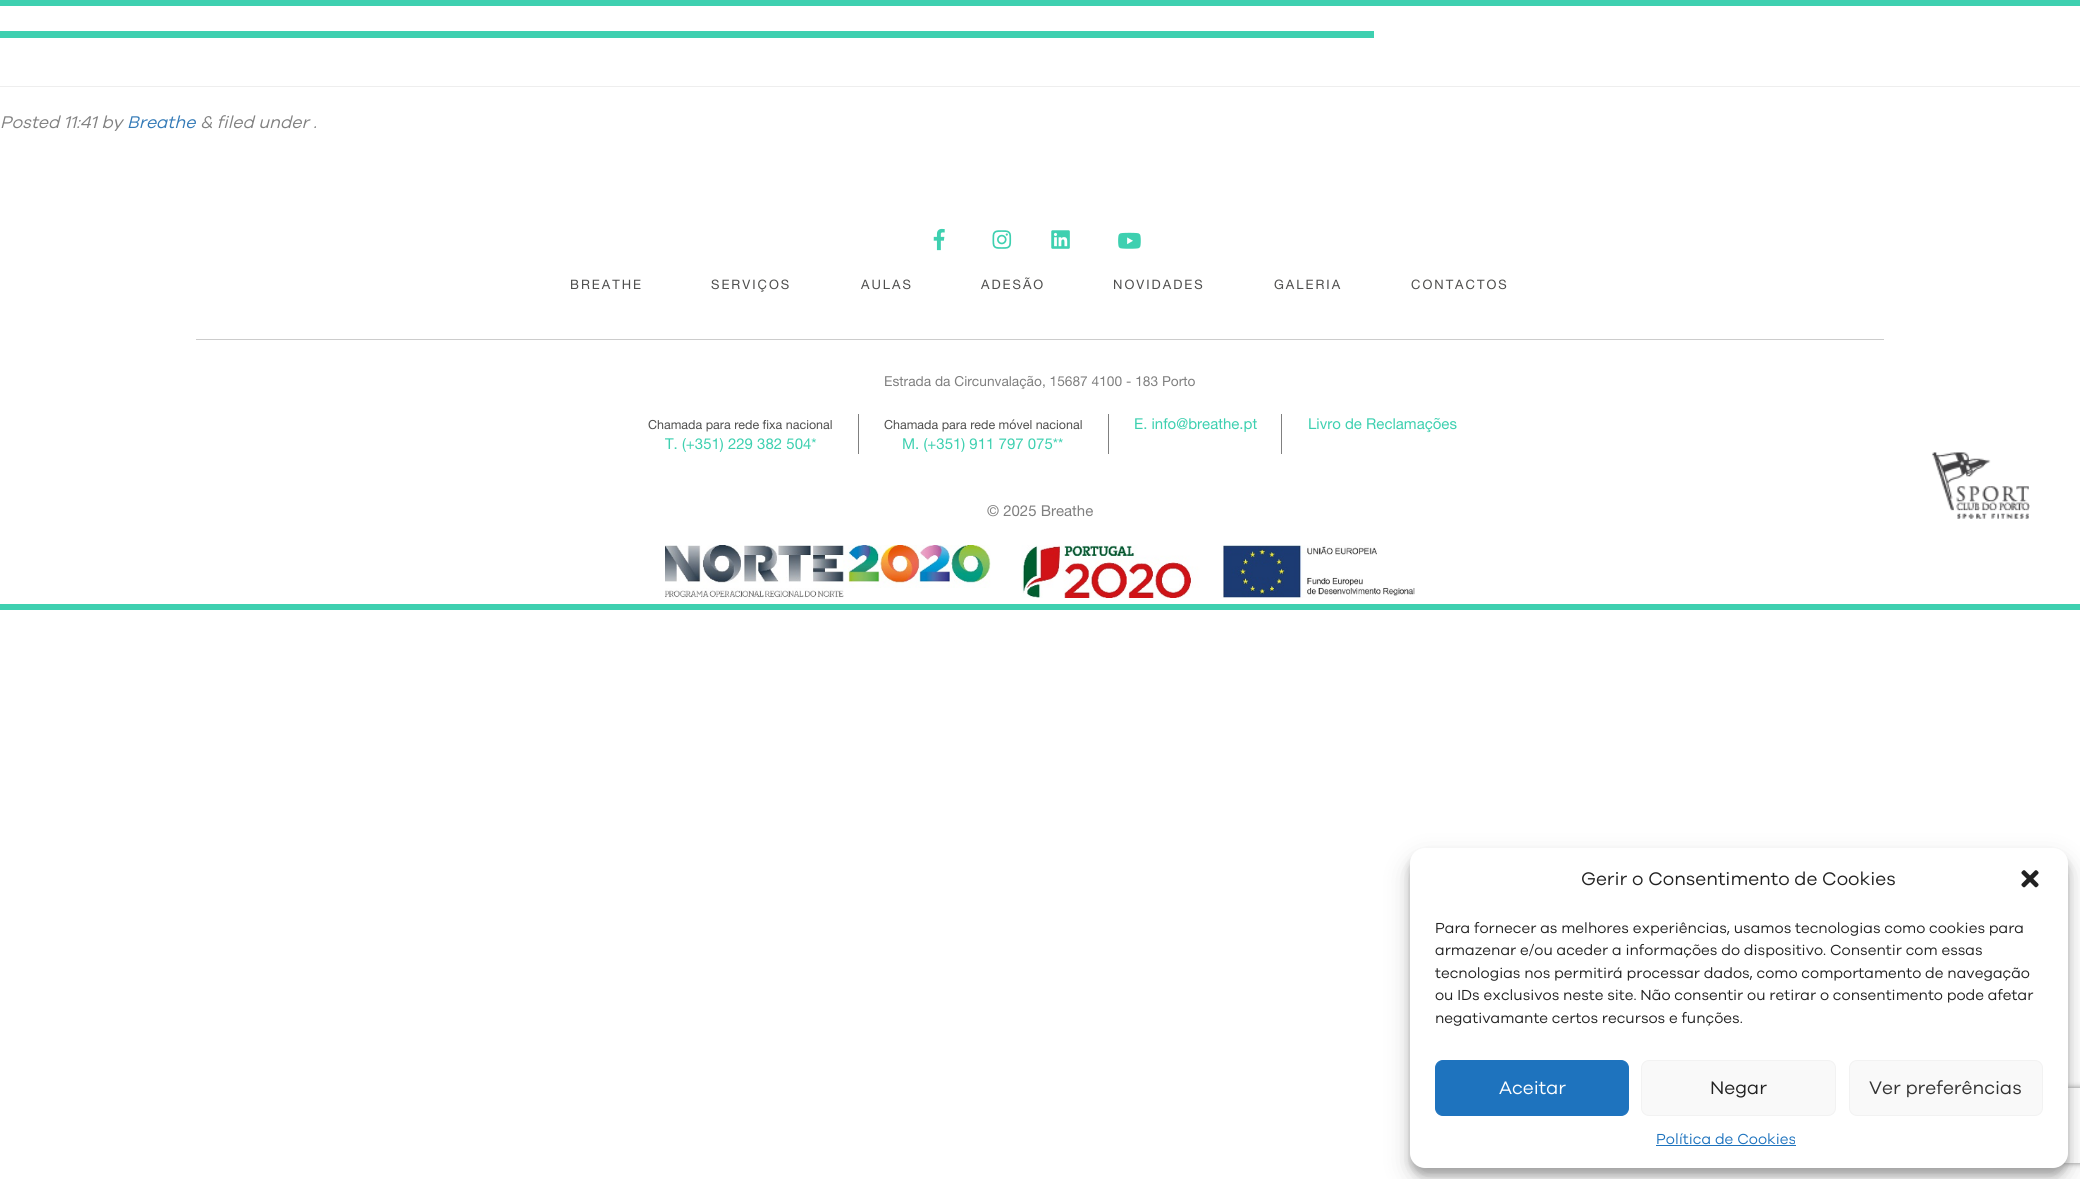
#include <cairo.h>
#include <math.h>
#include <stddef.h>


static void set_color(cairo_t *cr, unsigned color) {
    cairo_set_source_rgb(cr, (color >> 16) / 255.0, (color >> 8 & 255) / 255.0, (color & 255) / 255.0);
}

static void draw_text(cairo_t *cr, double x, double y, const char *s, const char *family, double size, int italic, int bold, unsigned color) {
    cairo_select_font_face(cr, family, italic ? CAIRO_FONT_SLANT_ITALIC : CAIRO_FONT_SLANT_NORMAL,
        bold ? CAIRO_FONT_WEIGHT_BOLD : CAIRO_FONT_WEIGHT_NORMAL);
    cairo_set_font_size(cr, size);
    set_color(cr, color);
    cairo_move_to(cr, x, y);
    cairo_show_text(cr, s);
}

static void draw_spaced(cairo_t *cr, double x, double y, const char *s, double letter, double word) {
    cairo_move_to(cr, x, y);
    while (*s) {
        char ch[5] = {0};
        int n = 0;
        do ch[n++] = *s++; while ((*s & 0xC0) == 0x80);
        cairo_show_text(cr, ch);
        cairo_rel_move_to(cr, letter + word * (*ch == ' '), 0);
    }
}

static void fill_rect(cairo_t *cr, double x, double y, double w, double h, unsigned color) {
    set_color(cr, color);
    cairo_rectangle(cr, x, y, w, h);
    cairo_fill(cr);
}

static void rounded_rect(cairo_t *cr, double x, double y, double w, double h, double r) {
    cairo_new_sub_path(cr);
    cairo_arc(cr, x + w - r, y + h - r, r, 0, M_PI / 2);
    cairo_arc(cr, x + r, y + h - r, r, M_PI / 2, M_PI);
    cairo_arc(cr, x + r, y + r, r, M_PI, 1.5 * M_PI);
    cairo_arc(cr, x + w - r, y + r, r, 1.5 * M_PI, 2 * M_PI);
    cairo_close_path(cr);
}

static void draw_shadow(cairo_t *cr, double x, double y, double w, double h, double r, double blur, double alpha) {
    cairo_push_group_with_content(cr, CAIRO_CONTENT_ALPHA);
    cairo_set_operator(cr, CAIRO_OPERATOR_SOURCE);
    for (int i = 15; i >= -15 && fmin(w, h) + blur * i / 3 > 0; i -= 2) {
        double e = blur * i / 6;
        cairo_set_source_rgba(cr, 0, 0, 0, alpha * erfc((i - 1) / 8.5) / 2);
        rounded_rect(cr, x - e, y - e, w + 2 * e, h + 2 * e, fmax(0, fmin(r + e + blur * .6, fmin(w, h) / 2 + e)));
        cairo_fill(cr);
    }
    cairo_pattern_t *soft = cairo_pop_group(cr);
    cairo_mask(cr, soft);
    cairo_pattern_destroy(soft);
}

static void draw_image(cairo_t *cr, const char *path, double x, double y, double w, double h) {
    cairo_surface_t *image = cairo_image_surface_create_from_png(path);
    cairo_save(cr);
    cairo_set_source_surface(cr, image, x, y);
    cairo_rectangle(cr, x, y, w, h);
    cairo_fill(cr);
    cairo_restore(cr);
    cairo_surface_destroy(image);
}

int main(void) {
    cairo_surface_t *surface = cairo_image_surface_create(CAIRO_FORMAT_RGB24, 2080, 1179);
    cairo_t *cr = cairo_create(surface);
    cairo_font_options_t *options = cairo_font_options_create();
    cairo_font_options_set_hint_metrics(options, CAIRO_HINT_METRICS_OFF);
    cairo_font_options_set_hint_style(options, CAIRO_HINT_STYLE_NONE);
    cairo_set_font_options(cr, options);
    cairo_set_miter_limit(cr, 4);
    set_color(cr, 0xFFFFFF);
    cairo_paint(cr);
    fill_rect(cr, 0, 31, 1374, 7, 0x3ED0B0);
    fill_rect(cr, 0, 0, 2080, 6, 0x3ED0B0);
    fill_rect(cr, 0, 86, 2080, 1, 0xEEEEEE);
    draw_text(cr, 0, 128, "Posted 11:41 by", "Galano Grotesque", 17.5, 1, 0, 0x808080);
    draw_text(cr, 127, 128, "Breathe", "Galano Grotesque", 17.5, 1, 0, 0x337AB7);
    draw_text(cr, 200, 128, "& filed under .", "Galano Grotesque", 17.5, 1, 0, 0x808080);
    fill_rect(cr, 0, 604, 2080, 6, 0x3ED0B0);
    draw_image(cr, "assets/img1.png", 933, 228, 12, 23);
    draw_image(cr, "assets/img2.png", 992, 230, 20, 19);
    draw_image(cr, "assets/img3.png", 1051, 230, 19, 19);
    draw_image(cr, "assets/img4.png", 1118, 232, 23, 17);
    cairo_select_font_face(cr, "Helvetica Neue", CAIRO_FONT_SLANT_NORMAL, CAIRO_FONT_WEIGHT_NORMAL);
    cairo_set_font_size(cr, 13);
    set_color(cr, 0x4F4F4E);
    draw_spaced(cr, 570, 289, "BREATHE", 2, 0);
    draw_spaced(cr, 711, 289, "SERVIÇOS", 2, 0);
    draw_spaced(cr, 861, 289, "AULAS", 2, 0);
    draw_spaced(cr, 981, 289, "ADESÃO", 2, 0);
    draw_spaced(cr, 1113, 289, "NOVIDADES", 2, 0);
    draw_spaced(cr, 1274, 289, "GALERIA", 2, 0);
    draw_spaced(cr, 1411, 289, "CONTACTOS", 2, 0);
    fill_rect(cr, 196, 339, 1688, 1, 0xCCCCCC);
    draw_text(cr, 884, 386, "Estrada da Circunvalação, 15687 4100 - 183 Porto", "Helvetica Neue", 13.75, 0, 0, 0x808080);
    fill_rect(cr, 858, 414, 1, 40, 0x808080);
    draw_text(cr, 648, 429, "Chamada para rede fixa nacional", "Helvetica Neue", 12.5, 0, 0, 0x4F4F4E);
    draw_text(cr, 665, 449, "T. (+351) 229 382 504*", "Helvetica Neue", 15, 0, 0, 0x3ED0B0);
    fill_rect(cr, 1108, 414, 1, 40, 0x808080);
    draw_text(cr, 884, 429, "Chamada para rede móvel nacional", "Helvetica Neue", 12.5, 0, 0, 0x4F4F4E);
    draw_text(cr, 902, 449, "M. (+351) 911 797 075**", "Helvetica Neue", 15, 0, 0, 0x3ED0B0);
    fill_rect(cr, 1281, 414, 1, 40, 0x808080);
    draw_text(cr, 1134, 429, "E. info@breathe.pt", "Helvetica Neue", 15, 0, 0, 0x3ED0B0);
    draw_text(cr, 1308, 429, "Livro de Reclamações", "Helvetica Neue", 15, 0, 0, 0x3ED0B0);
    draw_text(cr, 987, 516, "© 2025 Breathe", "Helvetica Neue", 15, 0, 0, 0x808080);
    draw_image(cr, "assets/img5.png", 1932, 452, 98, 67);
    draw_image(cr, "assets/img6.png", 665, 545, 750, 53);
    set_color(cr, 0x000000);
    draw_shadow(cr, 1410, 855, 658, 320, 15, 4, 0.23);
    draw_shadow(cr, 1410, 860, 658, 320, 15, 12.5, 0.19);
    cairo_save(cr);
    cairo_set_fill_rule(cr, CAIRO_FILL_RULE_EVEN_ODD);
    cairo_new_path(cr);
    cairo_move_to(cr, 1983, 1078);
    cairo_line_to(cr, 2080, 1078);
    cairo_line_to(cr, 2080, 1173);
    cairo_line_to(cr, 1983, 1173);
    cairo_close_path(cr);
    cairo_move_to(cr, 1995.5, 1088);
    cairo_line_to(cr, 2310.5, 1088);
    cairo_curve_to(cr, 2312, 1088, 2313, 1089, 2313, 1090.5);
    cairo_line_to(cr, 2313, 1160.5);
    cairo_curve_to(cr, 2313, 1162, 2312, 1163, 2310.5, 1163);
    cairo_line_to(cr, 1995.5, 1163);
    cairo_curve_to(cr, 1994, 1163, 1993, 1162, 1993, 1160.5);
    cairo_line_to(cr, 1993, 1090.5);
    cairo_curve_to(cr, 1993, 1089, 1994, 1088, 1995.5, 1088);
    cairo_close_path(cr);
    cairo_clip(cr);
    set_color(cr, 0x808080);
    draw_shadow(cr, 1993, 1088, 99, 75, 2.5, 3, 1);
    cairo_restore(cr);
    set_color(cr, 0xFFFFFF);
    rounded_rect(cr, 1410, 848, 658, 320, 15);
    cairo_fill(cr);
    draw_text(cr, 1581, 885, "Gerir o Consentimento de Cookies", "Galano Grotesque", 18.75, 0, 0, 0x222222);
    draw_image(cr, "assets/img7.png", 2021, 870, 18, 18);
    draw_text(cr, 1435, 933, "Para fornecer as melhores experiências, usamos tecnologias como cookies para", "Galano Grotesque", 15, 0, 0, 0x222222);
    draw_text(cr, 1435, 955, "armazenar e/ou aceder a informações do dispositivo. Consentir com essas", "Galano Grotesque", 15, 0, 0, 0x222222);
    draw_text(cr, 1435, 978, "tecnologias nos permitirá processar dados, como comportamento de navegação", "Galano Grotesque", 15, 0, 0, 0x222222);
    draw_text(cr, 1435, 1000, "ou IDs exclusivos neste site. Não consentir ou retirar o consentimento pode afetar", "Galano Grotesque", 15, 0, 0, 0x222222);
    draw_text(cr, 1435, 1023, "negativamante certos recursos e funções.", "Galano Grotesque", 15, 0, 0, 0x222222);
    set_color(cr, 0x1E73BE);
    rounded_rect(cr, 1435.5, 1060.5, 193, 55, 7.5);
    cairo_fill_preserve(cr);
    cairo_set_line_width(cr, 1);
    cairo_stroke(cr);
    draw_text(cr, 1499, 1094, "Aceitar", "Galano Grotesque", 18.75, 0, 0, 0xFFFFFF);
    set_color(cr, 0xF9F9F9);
    rounded_rect(cr, 1641.5, 1060.5, 194, 55, 7.5);
    cairo_fill_preserve(cr);
    set_color(cr, 0xF2F2F2);
    cairo_stroke(cr);
    draw_text(cr, 1710, 1094, "Negar", "Galano Grotesque", 18.75, 0, 0, 0x222222);
    set_color(cr, 0xF9F9F9);
    rounded_rect(cr, 1849.5, 1060.5, 193, 55, 7.5);
    cairo_fill_preserve(cr);
    set_color(cr, 0xF2F2F2);
    cairo_stroke(cr);
    draw_text(cr, 1869, 1094, "Ver preferências", "Galano Grotesque", 18.75, 0, 0, 0x333333);
    draw_text(cr, 1656, 1144, "Política de Cookies", "Galano Grotesque", 15, 0, 0, 0x1E73BE);
    fill_rect(cr, 1656, 1145, 140, 1, 0x1E73BE);
    cairo_surface_write_to_png(surface, "output.png");
    cairo_font_options_destroy(options);
    cairo_destroy(cr);
    cairo_surface_destroy(surface);
    return 0;
}
